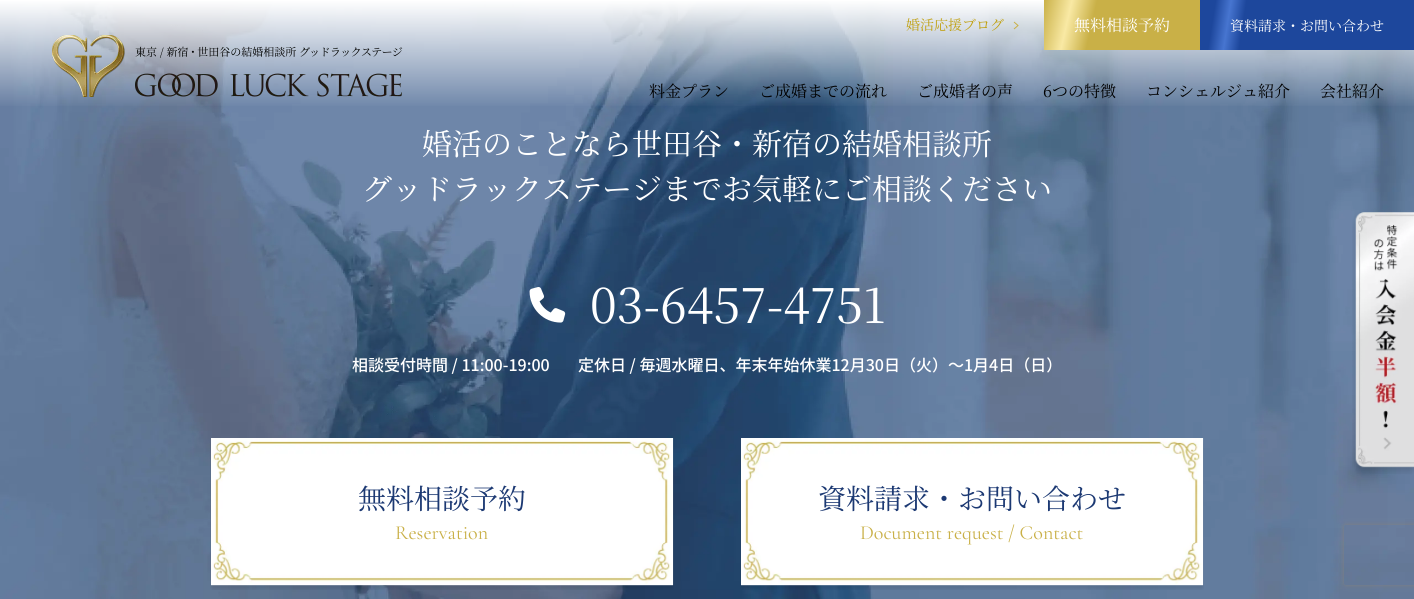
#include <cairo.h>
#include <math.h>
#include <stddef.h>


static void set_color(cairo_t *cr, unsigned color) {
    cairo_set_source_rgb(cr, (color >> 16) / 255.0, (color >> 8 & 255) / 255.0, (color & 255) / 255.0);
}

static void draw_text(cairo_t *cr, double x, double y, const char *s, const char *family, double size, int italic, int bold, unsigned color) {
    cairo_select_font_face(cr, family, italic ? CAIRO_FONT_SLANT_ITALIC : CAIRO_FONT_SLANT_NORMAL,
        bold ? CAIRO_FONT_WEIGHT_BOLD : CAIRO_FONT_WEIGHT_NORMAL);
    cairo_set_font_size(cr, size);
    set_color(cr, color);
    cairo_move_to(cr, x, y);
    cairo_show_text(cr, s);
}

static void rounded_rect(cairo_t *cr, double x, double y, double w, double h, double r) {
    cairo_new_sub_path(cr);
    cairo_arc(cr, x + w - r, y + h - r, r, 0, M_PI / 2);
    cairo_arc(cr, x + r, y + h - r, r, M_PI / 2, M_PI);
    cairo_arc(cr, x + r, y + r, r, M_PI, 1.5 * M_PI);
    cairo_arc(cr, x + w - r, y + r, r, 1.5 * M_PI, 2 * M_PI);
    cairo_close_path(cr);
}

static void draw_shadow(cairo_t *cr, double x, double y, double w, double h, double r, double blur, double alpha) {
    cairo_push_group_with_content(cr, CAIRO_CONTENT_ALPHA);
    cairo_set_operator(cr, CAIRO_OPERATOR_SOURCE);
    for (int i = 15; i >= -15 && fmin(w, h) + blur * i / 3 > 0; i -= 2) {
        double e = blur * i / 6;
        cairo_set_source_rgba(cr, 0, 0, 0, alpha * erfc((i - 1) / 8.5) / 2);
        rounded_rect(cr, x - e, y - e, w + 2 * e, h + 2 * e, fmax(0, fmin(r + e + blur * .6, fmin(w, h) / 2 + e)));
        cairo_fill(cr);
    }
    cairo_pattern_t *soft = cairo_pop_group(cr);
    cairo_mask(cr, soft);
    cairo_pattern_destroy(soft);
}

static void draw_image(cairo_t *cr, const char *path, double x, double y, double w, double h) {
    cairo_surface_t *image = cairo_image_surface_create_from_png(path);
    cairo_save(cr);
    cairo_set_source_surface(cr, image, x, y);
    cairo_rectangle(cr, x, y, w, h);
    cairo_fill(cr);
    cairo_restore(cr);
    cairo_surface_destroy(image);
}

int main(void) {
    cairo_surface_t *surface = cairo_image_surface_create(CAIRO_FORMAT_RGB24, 1414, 599);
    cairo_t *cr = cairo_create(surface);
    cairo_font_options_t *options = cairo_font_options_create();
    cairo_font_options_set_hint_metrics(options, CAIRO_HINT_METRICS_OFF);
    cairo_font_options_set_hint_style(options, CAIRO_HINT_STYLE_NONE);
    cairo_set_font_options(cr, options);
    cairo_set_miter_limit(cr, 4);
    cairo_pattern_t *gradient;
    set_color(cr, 0xFFFFFF);
    cairo_paint(cr);
    draw_image(cr, "assets/img2.png", 0, 1, 1414, 598);
    gradient = cairo_pattern_create_linear(707, 0, 707, 132);
    cairo_pattern_add_color_stop_rgba(gradient, 0, 1, 1, 1, 1);
    cairo_pattern_add_color_stop_rgba(gradient, 0.82, 1, 1, 1, 0);
    cairo_set_source(cr, gradient);
    cairo_pattern_destroy(gradient);
    cairo_rectangle(cr, 0, 1, 1414, 105);
    cairo_fill(cr);
    draw_image(cr, "assets/img1.png", 52, 35, 351, 62);
    draw_text(cr, 906, 30, "婚活応援ブログ", "Noto Serif JP", 14, 0, 0, 0xC0A00F);
    cairo_new_path(cr);
    cairo_move_to(cr, 1014, 22);
    cairo_line_to(cr, 1018, 25.5);
    cairo_line_to(cr, 1014, 29);
    set_color(cr, 0xC9B047);
    cairo_set_line_width(cr, 1);
    cairo_stroke(cr);
    gradient = cairo_pattern_create_linear(1042, 6.6, 1202, 43);
    cairo_pattern_add_color_stop_rgba(gradient, 0, 0.788, 0.69, 0.278, 1);
    cairo_pattern_add_color_stop_rgba(gradient, 0.17, 0.976, 0.914, 0.643, 1);
    cairo_pattern_add_color_stop_rgba(gradient, 0.32, 0.788, 0.69, 0.278, 1);
    cairo_set_source(cr, gradient);
    cairo_pattern_destroy(gradient);
    cairo_rectangle(cr, 1044, 0, 156, 50);
    cairo_fill(cr);
    draw_text(cr, 1074, 31, "無料相談予約", "Noto Serif JP", 16, 0, 0, 0xFFFFFF);
    gradient = cairo_pattern_create_linear(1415, 42, 1199, 7.9);
    cairo_pattern_add_color_stop_rgba(gradient, 0.79, 0.114, 0.278, 0.612, 1);
    cairo_pattern_add_color_stop_rgba(gradient, 0.86, 0.278, 0.459, 0.816, 1);
    cairo_pattern_add_color_stop_rgba(gradient, 0.93, 0.114, 0.278, 0.612, 1);
    cairo_set_source(cr, gradient);
    cairo_pattern_destroy(gradient);
    cairo_rectangle(cr, 1200, 0, 214, 50);
    cairo_fill(cr);
    draw_text(cr, 1230, 31, "資料請求・お問い合わせ", "Noto Serif JP", 14, 0, 0, 0xFFFFFF);
    draw_text(cr, 649, 97, "料金プラン", "Noto Serif JP", 16, 0, 0, 0x000000);
    draw_text(cr, 759, 97, "ご成婚までの流れ", "Noto Serif JP", 16, 0, 0, 0x000000);
    draw_text(cr, 917, 97, "ご成婚者の声", "Noto Serif JP", 16, 0, 0, 0x000000);
    draw_text(cr, 1043, 97, "6つの特徴", "Noto Serif JP", 16, 0, 0, 0x000000);
    draw_text(cr, 1146, 97, "コンシェルジュ紹介", "Noto Serif JP", 16, 0, 0, 0x000000);
    draw_text(cr, 1320, 97, "会社紹介", "Noto Serif JP", 16, 0, 0, 0x000000);
    draw_text(cr, 422, 155, "婚活のことなら世田谷・新宿の結婚相談所", "Noto Serif JP", 30, 0, 0, 0xFFFFFF);
    draw_text(cr, 362, 200, "グッドラックステージまでお気軽にご相談ください", "Noto Serif JP", 30, 0, 0, 0xFFFFFF);
    draw_image(cr, "assets/img3.png", 529, 287, 37, 36);
    draw_text(cr, 590, 323, "03-6457-4751", "Noto Serif JP", 48, 0, 0, 0xFFFFFF);
    draw_text(cr, 352, 371, "相談受付時間 / 11:00-19:00", "Noto Sans JP Medium", 16, 0, 0, 0xFFFFFF);
    draw_text(cr, 578, 371, "定休日 / 毎週水曜日、年末年始休業12月30日（火）～1月4日（日）", "Noto Sans JP Medium", 16, 0, 0, 0xFFFFFF);
    draw_image(cr, "assets/img4.png", 210, 438, 464, 152);
    draw_text(cr, 358, 509, "無料相談予約", "Noto Serif JP", 28, 0, 0, 0x1C3973);
    draw_text(cr, 395, 539, "Reservation", "Cormorant Garamond", 20, 0, 0, 0xC9B047);
    draw_image(cr, "assets/img5.png", 740, 438, 464, 152);
    draw_text(cr, 818, 509, "資料請求・お問い合わせ", "Noto Serif JP", 28, 0, 0, 0x1C3973);
    draw_text(cr, 860, 539, "Document request / Contact", "Cormorant Garamond", 20, 0, 0, 0xC9B047);
    draw_image(cr, "assets/img6.png", 1352, 212, 62, 262);
    cairo_save(cr);
    cairo_set_fill_rule(cr, CAIRO_FILL_RULE_EVEN_ODD);
    cairo_new_path(cr);
    cairo_move_to(cr, 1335, 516);
    cairo_line_to(cr, 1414, 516);
    cairo_line_to(cr, 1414, 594);
    cairo_line_to(cr, 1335, 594);
    cairo_close_path(cr);
    cairo_move_to(cr, 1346, 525);
    cairo_line_to(cr, 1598, 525);
    cairo_curve_to(cr, 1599, 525, 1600, 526, 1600, 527);
    cairo_line_to(cr, 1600, 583);
    cairo_curve_to(cr, 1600, 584, 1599, 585, 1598, 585);
    cairo_line_to(cr, 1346, 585);
    cairo_curve_to(cr, 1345, 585, 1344, 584, 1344, 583);
    cairo_line_to(cr, 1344, 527);
    cairo_curve_to(cr, 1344, 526, 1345, 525, 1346, 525);
    cairo_close_path(cr);
    cairo_clip(cr);
    set_color(cr, 0x808080);
    draw_shadow(cr, 1344, 525, 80, 60, 2, 2.5, 1);
    cairo_restore(cr);
    cairo_surface_write_to_png(surface, "output.png");
    cairo_font_options_destroy(options);
    cairo_destroy(cr);
    cairo_surface_destroy(surface);
    return 0;
}
